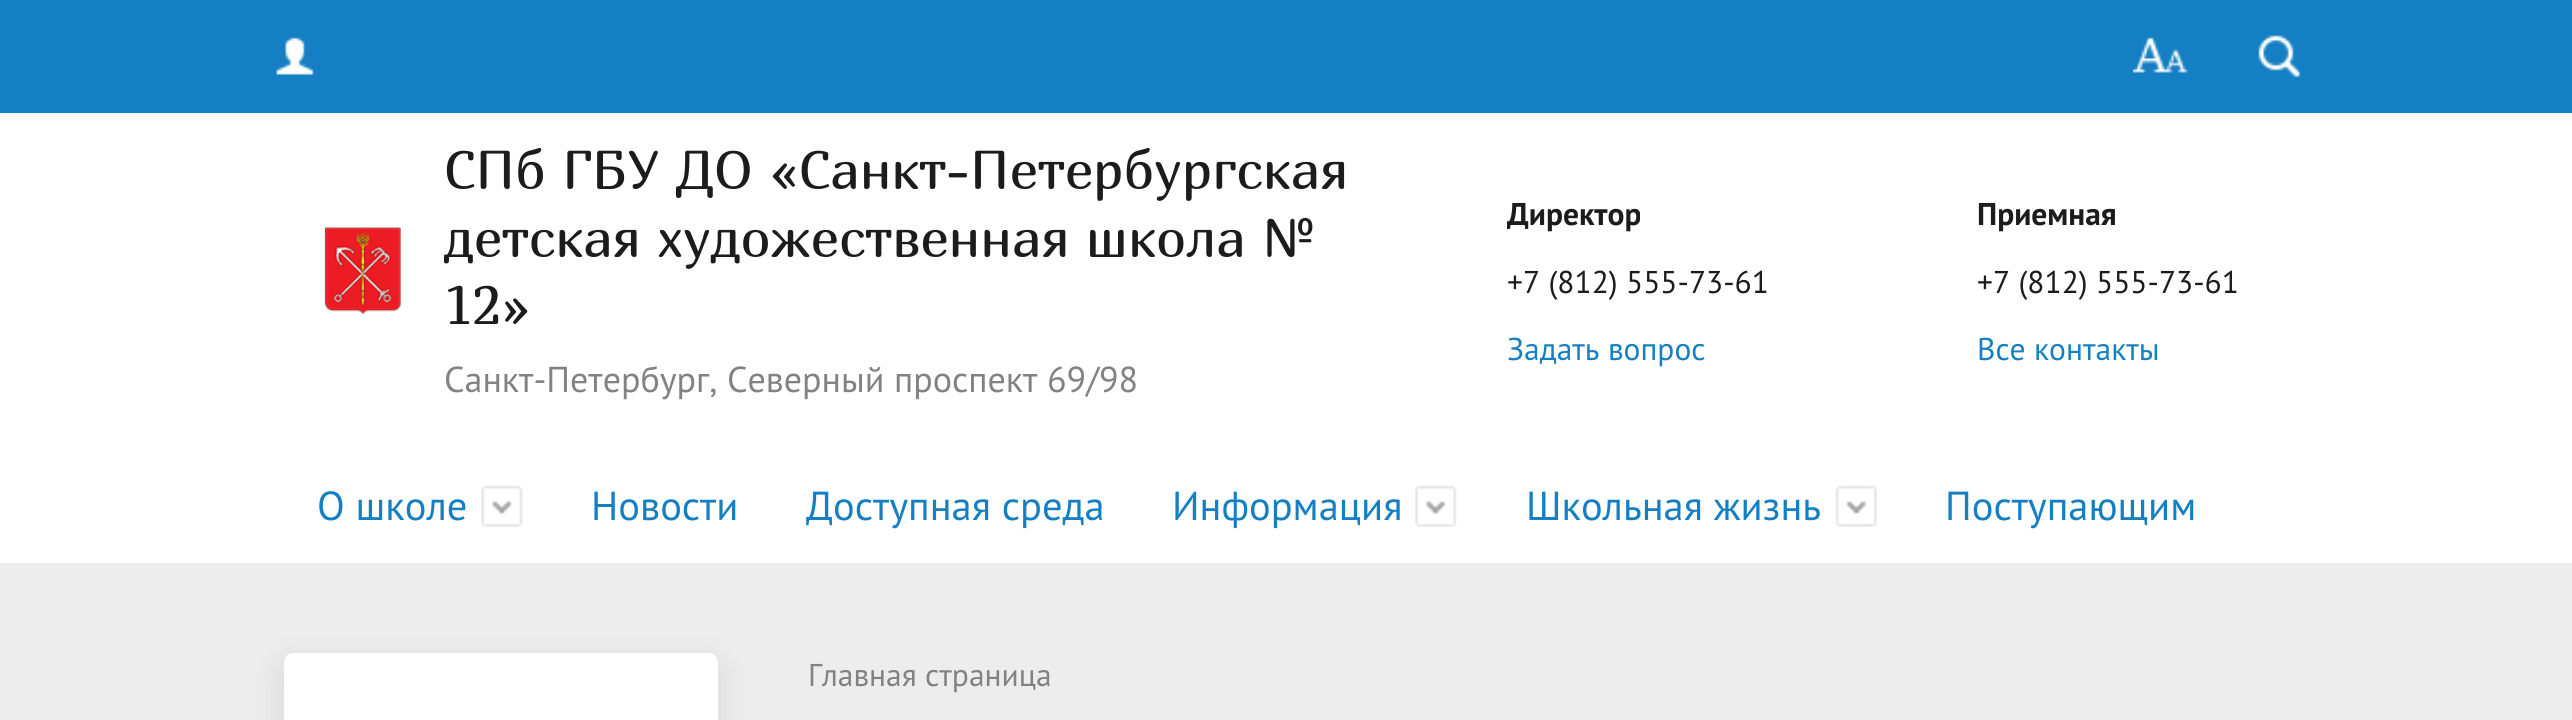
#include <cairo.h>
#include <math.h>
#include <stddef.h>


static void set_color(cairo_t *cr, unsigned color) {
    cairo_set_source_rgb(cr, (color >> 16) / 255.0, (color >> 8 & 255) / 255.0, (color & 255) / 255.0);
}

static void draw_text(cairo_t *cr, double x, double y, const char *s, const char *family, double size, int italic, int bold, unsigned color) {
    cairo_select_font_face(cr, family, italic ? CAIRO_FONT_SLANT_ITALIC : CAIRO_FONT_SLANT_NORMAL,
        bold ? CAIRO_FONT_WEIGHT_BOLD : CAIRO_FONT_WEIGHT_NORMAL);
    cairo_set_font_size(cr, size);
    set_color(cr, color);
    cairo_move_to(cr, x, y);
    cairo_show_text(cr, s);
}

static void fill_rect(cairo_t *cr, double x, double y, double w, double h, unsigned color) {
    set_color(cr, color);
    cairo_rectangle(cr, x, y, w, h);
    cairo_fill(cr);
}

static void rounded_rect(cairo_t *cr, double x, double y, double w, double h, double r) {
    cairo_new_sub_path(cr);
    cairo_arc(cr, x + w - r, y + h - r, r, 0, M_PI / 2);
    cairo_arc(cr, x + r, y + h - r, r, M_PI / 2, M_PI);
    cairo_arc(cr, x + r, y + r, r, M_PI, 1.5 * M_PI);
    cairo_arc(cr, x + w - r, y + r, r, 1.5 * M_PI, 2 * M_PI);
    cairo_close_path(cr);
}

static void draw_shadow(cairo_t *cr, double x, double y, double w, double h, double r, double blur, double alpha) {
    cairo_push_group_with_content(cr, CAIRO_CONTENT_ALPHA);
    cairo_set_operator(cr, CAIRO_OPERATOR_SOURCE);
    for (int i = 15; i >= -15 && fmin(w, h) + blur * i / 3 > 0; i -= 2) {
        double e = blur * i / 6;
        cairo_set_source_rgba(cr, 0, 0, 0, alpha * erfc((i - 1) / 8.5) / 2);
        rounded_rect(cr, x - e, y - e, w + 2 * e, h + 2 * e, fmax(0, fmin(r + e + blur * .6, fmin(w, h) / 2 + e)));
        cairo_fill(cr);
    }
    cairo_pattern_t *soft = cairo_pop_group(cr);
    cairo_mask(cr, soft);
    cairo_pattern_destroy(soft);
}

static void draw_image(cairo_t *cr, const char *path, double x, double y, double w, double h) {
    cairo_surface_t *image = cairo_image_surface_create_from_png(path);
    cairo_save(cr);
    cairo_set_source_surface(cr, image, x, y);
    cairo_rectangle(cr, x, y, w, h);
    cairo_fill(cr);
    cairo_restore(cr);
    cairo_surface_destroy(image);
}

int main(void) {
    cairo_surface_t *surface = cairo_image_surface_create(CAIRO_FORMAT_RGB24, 2572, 720);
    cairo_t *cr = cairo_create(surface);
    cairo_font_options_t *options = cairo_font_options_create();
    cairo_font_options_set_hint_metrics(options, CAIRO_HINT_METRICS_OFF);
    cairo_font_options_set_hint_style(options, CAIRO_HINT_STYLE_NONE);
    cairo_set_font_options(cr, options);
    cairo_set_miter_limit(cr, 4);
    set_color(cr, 0xEDEDED);
    cairo_paint(cr);
    fill_rect(cr, 0, 0, 2572, 113, 0x157FC4);
    draw_image(cr, "assets/img1.png", 276, 37, 38, 38);
    draw_image(cr, "assets/img2.png", 2133, 37, 55, 36);
    draw_image(cr, "assets/img3.png", 2258, 35, 43, 43);
    fill_rect(cr, 0, 113, 2572, 450, 0xFFFFFF);
    draw_image(cr, "assets/img4.png", 324, 227, 77, 87);
    draw_text(cr, 444, 189, "СПб ГБУ ДО «Санкт-Петербургская", "Marmelad", 54, 0, 0, 0x1C1C1C);
    draw_text(cr, 444, 257, "детская художественная школа №", "Marmelad", 54, 0, 0, 0x1C1C1C);
    draw_text(cr, 444, 324, "12»", "Marmelad", 54, 0, 0, 0x1C1C1C);
    draw_text(cr, 444, 392, "Санкт-Петербург, Северный проспект 69/98", "PT Sans", 36, 0, 0, 0x828282);
    draw_text(cr, 1507, 225, "Директор", "PT Sans", 31.5, 0, 1, 0x1C1C1C);
    draw_text(cr, 1507, 293, "+7 (812) 555-73-61", "PT Sans", 31.5, 0, 0, 0x1C1C1C);
    draw_text(cr, 1507, 360, "Задать вопрос", "PT Sans", 31.5, 0, 0, 0x157FC4);
    draw_text(cr, 1977, 225, "Приемная", "PT Sans", 31.5, 0, 1, 0x1C1C1C);
    draw_text(cr, 1977, 293, "+7 (812) 555-73-61", "PT Sans", 31.5, 0, 0, 0x1C1C1C);
    draw_text(cr, 1977, 360, "Все контакты", "PT Sans", 31.5, 0, 0, 0x157FC4);
    draw_text(cr, 317, 520, "О школе", "PT Sans", 40.5, 0, 0, 0x157FC4);
    draw_image(cr, "assets/img5.png", 481, 485, 42, 42);
    draw_text(cr, 591, 520, "Новости", "PT Sans", 40.5, 0, 0, 0x157FC4);
    draw_text(cr, 806, 520, "Доступная среда", "PT Sans", 40.5, 0, 0, 0x157FC4);
    draw_text(cr, 1172, 520, "Информация", "PT Sans", 40.5, 0, 0, 0x157FC4);
    draw_image(cr, "assets/img6.png", 1415, 485, 42, 42);
    draw_text(cr, 1526, 520, "Школьная жизнь", "PT Sans", 40.5, 0, 0, 0x157FC4);
    draw_image(cr, "assets/img7.png", 1835, 485, 42, 42);
    draw_text(cr, 1945, 520, "Поступающим", "PT Sans", 40.5, 0, 0, 0x157FC4);
    set_color(cr, 0x000000);
    draw_shadow(cr, 284, 664, 434, 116, 9, 17, 0.1);
    set_color(cr, 0xFFFFFF);
    rounded_rect(cr, 284, 653, 434, 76, 9);
    cairo_fill(cr);
    draw_text(cr, 808, 686, "Главная страница", "PT Sans", 31.5, 0, 0, 0x828282);
    cairo_surface_write_to_png(surface, "output.png");
    cairo_font_options_destroy(options);
    cairo_destroy(cr);
    cairo_surface_destroy(surface);
    return 0;
}
